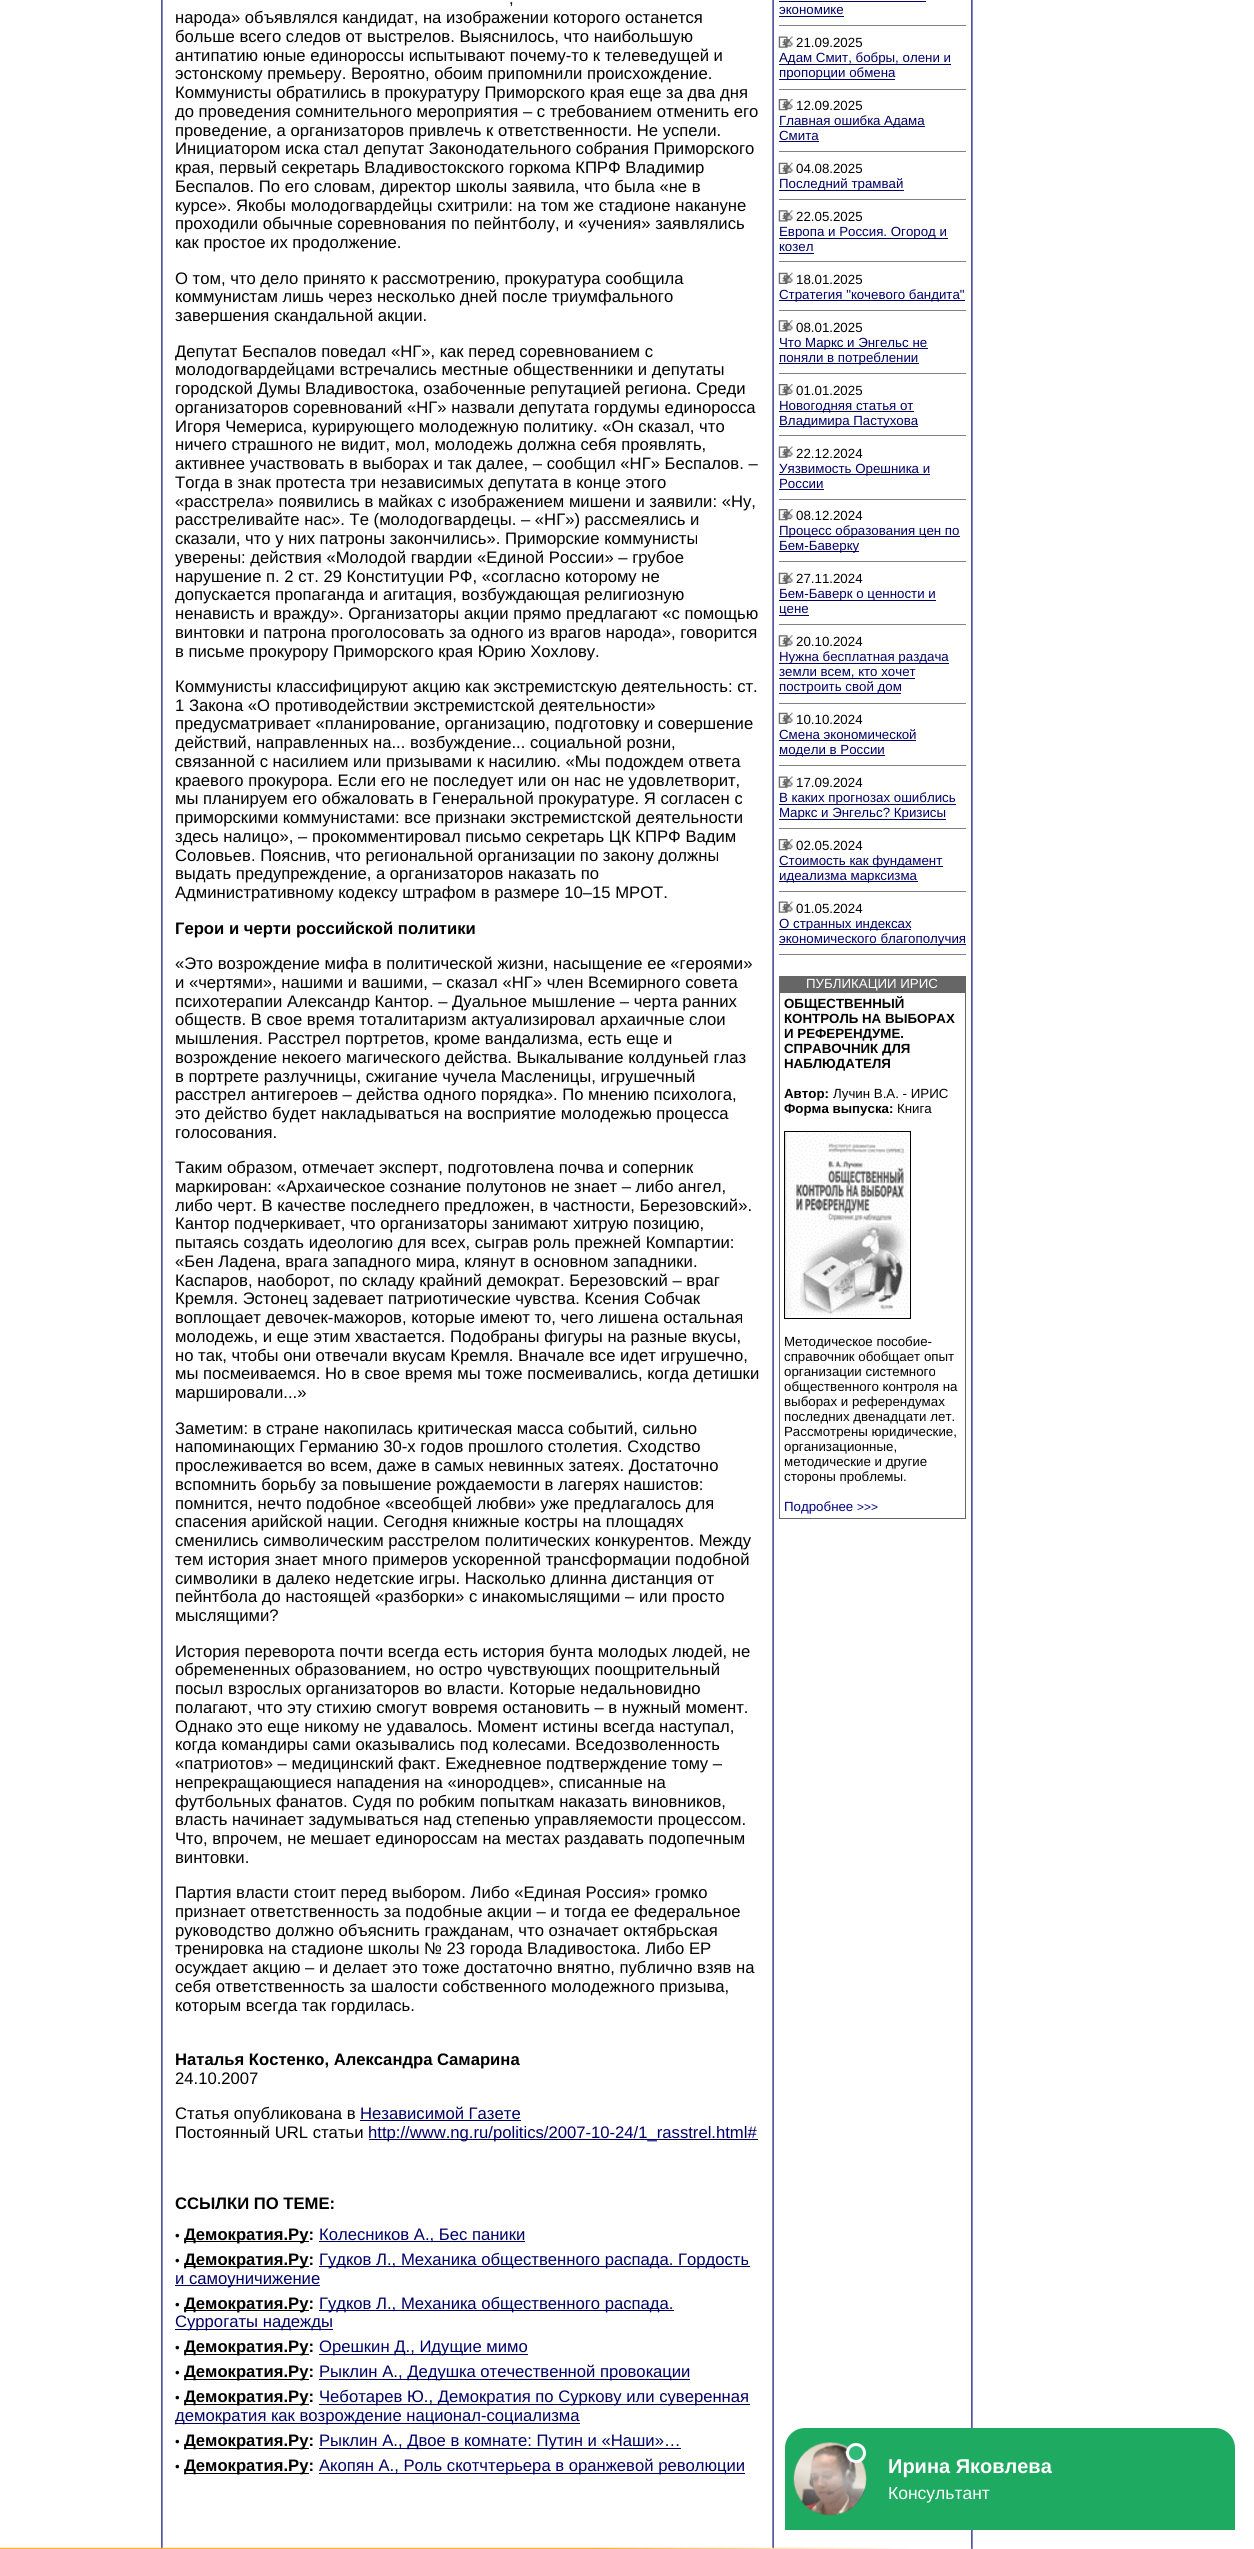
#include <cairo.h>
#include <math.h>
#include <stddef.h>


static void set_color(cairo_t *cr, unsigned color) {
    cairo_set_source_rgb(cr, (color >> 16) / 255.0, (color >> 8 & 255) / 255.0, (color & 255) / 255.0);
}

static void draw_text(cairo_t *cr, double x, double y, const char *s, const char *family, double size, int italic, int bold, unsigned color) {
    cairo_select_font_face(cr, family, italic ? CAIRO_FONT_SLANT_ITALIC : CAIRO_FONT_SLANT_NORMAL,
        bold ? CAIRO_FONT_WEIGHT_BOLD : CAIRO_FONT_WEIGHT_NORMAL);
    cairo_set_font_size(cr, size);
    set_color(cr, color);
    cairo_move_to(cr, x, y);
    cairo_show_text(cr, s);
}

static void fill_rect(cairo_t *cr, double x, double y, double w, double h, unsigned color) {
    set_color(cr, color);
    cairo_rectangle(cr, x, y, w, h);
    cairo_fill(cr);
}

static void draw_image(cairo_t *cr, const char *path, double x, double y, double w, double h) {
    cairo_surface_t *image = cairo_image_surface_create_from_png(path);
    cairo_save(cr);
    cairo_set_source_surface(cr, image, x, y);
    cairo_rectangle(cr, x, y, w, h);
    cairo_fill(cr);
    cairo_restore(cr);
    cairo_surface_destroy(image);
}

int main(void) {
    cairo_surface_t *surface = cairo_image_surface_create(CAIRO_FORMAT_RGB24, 1254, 2549);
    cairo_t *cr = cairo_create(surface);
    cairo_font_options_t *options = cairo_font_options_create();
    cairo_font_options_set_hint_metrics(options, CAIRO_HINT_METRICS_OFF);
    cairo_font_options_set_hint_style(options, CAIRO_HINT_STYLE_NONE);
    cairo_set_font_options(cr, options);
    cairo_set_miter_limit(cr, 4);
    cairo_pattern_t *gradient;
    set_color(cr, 0xFFFFFF);
    cairo_paint(cr);
    draw_image(cr, "assets/img1.png", 161, 0, 812, 2549);
    draw_text(cr, 509, 4, ",", "Liberation Sans", 16.65, 0, 0, 0x000000);
    draw_text(cr, 175, 23, "народа» объявлялся кандидат, на изображении которого останется", "Liberation Sans", 16.65, 0, 0, 0x000000);
    draw_text(cr, 175, 42, "больше всего следов от выстрелов. Выяснилось, что наибольшую", "Liberation Sans", 16.65, 0, 0, 0x000000);
    draw_text(cr, 175, 61, "антипатию юные единороссы испытывают почему-то к телеведущей и", "Liberation Sans", 16.65, 0, 0, 0x000000);
    draw_text(cr, 175, 79, "эстонскому премьеру. Вероятно, обоим припомнили происхождение.", "Liberation Sans", 16.65, 0, 0, 0x000000);
    draw_text(cr, 175, 98, "Коммунисты обратились в прокуратуру Приморского края еще за два дня", "Liberation Sans", 16.65, 0, 0, 0x000000);
    draw_text(cr, 175, 117, "до проведения сомнительного мероприятия – с требованием отменить его", "Liberation Sans", 16.65, 0, 0, 0x000000);
    draw_text(cr, 175, 136, "проведение, а организаторов привлечь к ответственности. Не успели.", "Liberation Sans", 16.65, 0, 0, 0x000000);
    draw_text(cr, 175, 154, "Инициатором иска стал депутат Законодательного собрания Приморского", "Liberation Sans", 16.65, 0, 0, 0x000000);
    draw_text(cr, 175, 173, "края, первый секретарь Владивостокского горкома КПРФ Владимир", "Liberation Sans", 16.65, 0, 0, 0x000000);
    draw_text(cr, 175, 192, "Беспалов. По его словам, директор школы заявила, что была «не в", "Liberation Sans", 16.65, 0, 0, 0x000000);
    draw_text(cr, 175, 211, "курсе». Якобы молодогвардейцы схитрили: на том же стадионе накануне", "Liberation Sans", 16.65, 0, 0, 0x000000);
    draw_text(cr, 175, 229, "проходили обычные соревнования по пейнтболу, и «учения» заявлялись", "Liberation Sans", 16.65, 0, 0, 0x000000);
    draw_text(cr, 175, 248, "как простое их продолжение.", "Liberation Sans", 16.65, 0, 0, 0x000000);
    draw_text(cr, 175, 284, "О том, что дело принято к рассмотрению, прокуратура сообщила", "Liberation Sans", 16.65, 0, 0, 0x000000);
    draw_text(cr, 175, 302, "коммунистам лишь через несколько дней после триумфального", "Liberation Sans", 16.65, 0, 0, 0x000000);
    draw_text(cr, 175, 321, "завершения скандальной акции.", "Liberation Sans", 16.65, 0, 0, 0x000000);
    draw_text(cr, 175, 357, "Депутат Беспалов поведал «НГ», как перед соревнованием с", "Liberation Sans", 16.65, 0, 0, 0x000000);
    draw_text(cr, 175, 375, "молодогвардейцами встречались местные общественники и депутаты", "Liberation Sans", 16.65, 0, 0, 0x000000);
    draw_text(cr, 175, 394, "городской Думы Владивостока, озабоченные репутацией региона. Среди", "Liberation Sans", 16.65, 0, 0, 0x000000);
    draw_text(cr, 175, 413, "организаторов соревнований «НГ» назвали депутата гордумы единоросса", "Liberation Sans", 16.65, 0, 0, 0x000000);
    draw_text(cr, 175, 432, "Игоря Чемериса, курирующего молодежную политику. «Он сказал, что", "Liberation Sans", 16.65, 0, 0, 0x000000);
    draw_text(cr, 175, 450, "ничего страшного не видит, мол, молодежь должна себя проявлять,", "Liberation Sans", 16.65, 0, 0, 0x000000);
    draw_text(cr, 175, 469, "активнее участвовать в выборах и так далее, – сообщил «НГ» Беспалов. –", "Liberation Sans", 16.65, 0, 0, 0x000000);
    draw_text(cr, 175, 488, "Тогда в знак протеста три независимых депутата в конце этого", "Liberation Sans", 16.65, 0, 0, 0x000000);
    draw_text(cr, 175, 507, "«расстрела» появились в майках с изображением мишени и заявили: «Ну,", "Liberation Sans", 16.65, 0, 0, 0x000000);
    draw_text(cr, 175, 525, "расстреливайте нас». Те (молодогвардецы. – «НГ») рассмеялись и", "Liberation Sans", 16.65, 0, 0, 0x000000);
    draw_text(cr, 175, 544, "сказали, что у них патроны закончились». Приморские коммунисты", "Liberation Sans", 16.65, 0, 0, 0x000000);
    draw_text(cr, 175, 563, "уверены: действия «Молодой гвардии «Единой России» – грубое", "Liberation Sans", 16.65, 0, 0, 0x000000);
    draw_text(cr, 175, 582, "нарушение п. 2 ст. 29 Конституции РФ, «согласно которому не", "Liberation Sans", 16.65, 0, 0, 0x000000);
    draw_text(cr, 175, 600, "допускается пропаганда и агитация, возбуждающая религиозную", "Liberation Sans", 16.65, 0, 0, 0x000000);
    draw_text(cr, 175, 619, "ненависть и вражду». Организаторы акции прямо предлагают «с помощью", "Liberation Sans", 16.65, 0, 0, 0x000000);
    draw_text(cr, 175, 638, "винтовки и патрона проголосовать за одного из врагов народа», говорится", "Liberation Sans", 16.65, 0, 0, 0x000000);
    draw_text(cr, 175, 657, "в письме прокурору Приморского края Юрию Хохлову.", "Liberation Sans", 16.65, 0, 0, 0x000000);
    draw_text(cr, 175, 692, "Коммунисты классифицируют акцию как экстремистскую деятельность: ст.", "Liberation Sans", 16.65, 0, 0, 0x000000);
    draw_text(cr, 175, 711, "1 Закона «О противодействии экстремистской деятельности»", "Liberation Sans", 16.65, 0, 0, 0x000000);
    draw_text(cr, 175, 729, "предусматривает «планирование, организацию, подготовку и совершение", "Liberation Sans", 16.65, 0, 0, 0x000000);
    draw_text(cr, 175, 748, "действий, направленных на... возбуждение... социальной розни,", "Liberation Sans", 16.65, 0, 0, 0x000000);
    draw_text(cr, 175, 767, "связанной с насилием или призывами к насилию. «Мы подождем ответа", "Liberation Sans", 16.65, 0, 0, 0x000000);
    draw_text(cr, 175, 786, "краевого прокурора. Если его не последует или он нас не удовлетворит,", "Liberation Sans", 16.65, 0, 0, 0x000000);
    draw_text(cr, 175, 804, "мы планируем его обжаловать в Генеральной прокуратуре. Я согласен с", "Liberation Sans", 16.65, 0, 0, 0x000000);
    draw_text(cr, 175, 823, "приморскими коммунистами: все признаки экстремистской деятельности", "Liberation Sans", 16.65, 0, 0, 0x000000);
    draw_text(cr, 175, 842, "здесь налицо», – прокомментировал письмо секретарь ЦК КПРФ Вадим", "Liberation Sans", 16.65, 0, 0, 0x000000);
    draw_text(cr, 175, 861, "Соловьев. Пояснив, что региональной организации по закону должны", "Liberation Sans", 16.65, 0, 0, 0x000000);
    draw_text(cr, 175, 879, "выдать предупреждение, а организаторов наказать по", "Liberation Sans", 16.65, 0, 0, 0x000000);
    draw_text(cr, 175, 898, "Административному кодексу штрафом в размере 10–15 МРОТ.", "Liberation Sans", 16.65, 0, 0, 0x000000);
    draw_text(cr, 175, 934, "Герои и черти российской политики", "Liberation Sans", 16.65, 0, 1, 0x000000);
    draw_text(cr, 175, 969, "«Это возрождение мифа в политической жизни, насыщение ее «героями»", "Liberation Sans", 16.65, 0, 0, 0x000000);
    draw_text(cr, 175, 988, "и «чертями», нашими и вашими, – сказал «НГ» член Всемирного совета", "Liberation Sans", 16.65, 0, 0, 0x000000);
    draw_text(cr, 175, 1007, "психотерапии Александр Кантор. – Дуальное мышление – черта ранних", "Liberation Sans", 16.65, 0, 0, 0x000000);
    draw_text(cr, 175, 1025, "обществ. В свое время тоталитаризм актуализировал архаичные слои", "Liberation Sans", 16.65, 0, 0, 0x000000);
    draw_text(cr, 175, 1044, "мышления. Расстрел портретов, кроме вандализма, есть еще и", "Liberation Sans", 16.65, 0, 0, 0x000000);
    draw_text(cr, 175, 1063, "возрождение некоего магического действа. Выкалывание колдуньей глаз", "Liberation Sans", 16.65, 0, 0, 0x000000);
    draw_text(cr, 175, 1082, "в портрете разлучницы, сжигание чучела Масленицы, игрушечный", "Liberation Sans", 16.65, 0, 0, 0x000000);
    draw_text(cr, 175, 1100, "расстрел антигероев – действа одного порядка». По мнению психолога,", "Liberation Sans", 16.65, 0, 0, 0x000000);
    draw_text(cr, 175, 1119, "это действо будет накладываться на восприятие молодежью процесса", "Liberation Sans", 16.65, 0, 0, 0x000000);
    draw_text(cr, 175, 1138, "голосования.", "Liberation Sans", 16.65, 0, 0, 0x000000);
    draw_text(cr, 175, 1173, "Таким образом, отмечает эксперт, подготовлена почва и соперник", "Liberation Sans", 16.65, 0, 0, 0x000000);
    draw_text(cr, 175, 1192, "маркирован: «Архаическое сознание полутонов не знает – либо ангел,", "Liberation Sans", 16.65, 0, 0, 0x000000);
    draw_text(cr, 175, 1211, "либо черт. В качестве последнего предложен, в частности, Березовский».", "Liberation Sans", 16.65, 0, 0, 0x000000);
    draw_text(cr, 175, 1229, "Кантор подчеркивает, что организаторы занимают хитрую позицию,", "Liberation Sans", 16.65, 0, 0, 0x000000);
    draw_text(cr, 175, 1248, "пытаясь создать идеологию для всех, сыграв роль прежней Компартии:", "Liberation Sans", 16.65, 0, 0, 0x000000);
    draw_text(cr, 175, 1267, "«Бен Ладена, врага западного мира, клянут в основном западники.", "Liberation Sans", 16.65, 0, 0, 0x000000);
    draw_text(cr, 175, 1286, "Каспаров, наоборот, по складу крайний демократ. Березовский – враг", "Liberation Sans", 16.65, 0, 0, 0x000000);
    draw_text(cr, 175, 1304, "Кремля. Эстонец задевает патриотические чувства. Ксения Собчак", "Liberation Sans", 16.65, 0, 0, 0x000000);
    draw_text(cr, 175, 1323, "воплощает девочек-мажоров, которые имеют то, чего лишена остальная", "Liberation Sans", 16.65, 0, 0, 0x000000);
    draw_text(cr, 175, 1342, "молодежь, и еще этим хвастается. Подобраны фигуры на разные вкусы,", "Liberation Sans", 16.65, 0, 0, 0x000000);
    draw_text(cr, 175, 1361, "но так, чтобы они отвечали вкусам Кремля. Вначале все идет игрушечно,", "Liberation Sans", 16.65, 0, 0, 0x000000);
    draw_text(cr, 175, 1379, "мы посмеиваемся. Но в свое время мы тоже посмеивались, когда детишки", "Liberation Sans", 16.65, 0, 0, 0x000000);
    draw_text(cr, 175, 1398, "маршировали...»", "Liberation Sans", 16.65, 0, 0, 0x000000);
    draw_text(cr, 175, 1434, "Заметим: в стране накопилась критическая масса событий, сильно", "Liberation Sans", 16.65, 0, 0, 0x000000);
    draw_text(cr, 175, 1452, "напоминающих Германию 30-х годов прошлого столетия. Сходство", "Liberation Sans", 16.65, 0, 0, 0x000000);
    draw_text(cr, 175, 1471, "прослеживается во всем, даже в самых невинных затеях. Достаточно", "Liberation Sans", 16.65, 0, 0, 0x000000);
    draw_text(cr, 175, 1490, "вспомнить борьбу за повышение рождаемости в лагерях нашистов:", "Liberation Sans", 16.65, 0, 0, 0x000000);
    draw_text(cr, 175, 1509, "помнится, нечто подобное «всеобщей любви» уже предлагалось для", "Liberation Sans", 16.65, 0, 0, 0x000000);
    draw_text(cr, 175, 1527, "спасения арийской нации. Сегодня книжные костры на площадях", "Liberation Sans", 16.65, 0, 0, 0x000000);
    draw_text(cr, 175, 1546, "сменились символическим расстрелом политических конкурентов. Между", "Liberation Sans", 16.65, 0, 0, 0x000000);
    draw_text(cr, 175, 1565, "тем история знает много примеров ускоренной трансформации подобной", "Liberation Sans", 16.65, 0, 0, 0x000000);
    draw_text(cr, 175, 1584, "символики в далеко недетские игры. Насколько длинна дистанция от", "Liberation Sans", 16.65, 0, 0, 0x000000);
    draw_text(cr, 175, 1602, "пейнтбола до настоящей «разборки» с инакомыслящими – или просто", "Liberation Sans", 16.65, 0, 0, 0x000000);
    draw_text(cr, 175, 1621, "мыслящими?", "Liberation Sans", 16.65, 0, 0, 0x000000);
    draw_text(cr, 175, 1657, "История переворота почти всегда есть история бунта молодых людей, не", "Liberation Sans", 16.65, 0, 0, 0x000000);
    draw_text(cr, 175, 1675, "обремененных образованием, но остро чувствующих поощрительный", "Liberation Sans", 16.65, 0, 0, 0x000000);
    draw_text(cr, 175, 1694, "посыл взрослых организаторов во власти. Которые недальновидно", "Liberation Sans", 16.65, 0, 0, 0x000000);
    draw_text(cr, 175, 1713, "полагают, что эту стихию смогут вовремя остановить – в нужный момент.", "Liberation Sans", 16.65, 0, 0, 0x000000);
    draw_text(cr, 175, 1732, "Однако это еще никому не удавалось. Момент истины всегда наступал,", "Liberation Sans", 16.65, 0, 0, 0x000000);
    draw_text(cr, 175, 1750, "когда командиры сами оказывались под колесами. Вседозволенность", "Liberation Sans", 16.65, 0, 0, 0x000000);
    draw_text(cr, 175, 1769, "«патриотов» – медицинский факт. Ежедневное подтверждение тому –", "Liberation Sans", 16.65, 0, 0, 0x000000);
    draw_text(cr, 175, 1788, "непрекращающиеся нападения на «инородцев», списанные на", "Liberation Sans", 16.65, 0, 0, 0x000000);
    draw_text(cr, 175, 1807, "футбольных фанатов. Судя по робким попыткам наказать виновников,", "Liberation Sans", 16.65, 0, 0, 0x000000);
    draw_text(cr, 175, 1825, "власть начинает задумываться над степенью управляемости процессом.", "Liberation Sans", 16.65, 0, 0, 0x000000);
    draw_text(cr, 175, 1844, "Что, впрочем, не мешает единороссам на местах раздавать подопечным", "Liberation Sans", 16.65, 0, 0, 0x000000);
    draw_text(cr, 175, 1863, "винтовки.", "Liberation Sans", 16.65, 0, 0, 0x000000);
    draw_text(cr, 175, 1898, "Партия власти стоит перед выбором. Либо «Единая Россия» громко", "Liberation Sans", 16.65, 0, 0, 0x000000);
    draw_text(cr, 175, 1917, "признает ответственность за подобные акции – и тогда ее федеральное", "Liberation Sans", 16.65, 0, 0, 0x000000);
    draw_text(cr, 175, 1936, "руководство должно объяснить гражданам, что означает октябрьская", "Liberation Sans", 16.65, 0, 0, 0x000000);
    draw_text(cr, 175, 1954, "тренировка на стадионе школы № 23 города Владивостока. Либо ЕР", "Liberation Sans", 16.65, 0, 0, 0x000000);
    draw_text(cr, 175, 1973, "осуждает акцию – и делает это тоже достаточно внятно, публично взяв на", "Liberation Sans", 16.65, 0, 0, 0x000000);
    draw_text(cr, 175, 1992, "себя ответственность за шалости собственного молодежного призыва,", "Liberation Sans", 16.65, 0, 0, 0x000000);
    draw_text(cr, 175, 2011, "которым всегда так гордилась.", "Liberation Sans", 16.65, 0, 0, 0x000000);
    draw_text(cr, 175, 2065, "Наталья Костенко, Александра Самарина", "Liberation Sans", 16.65, 0, 1, 0x000000);
    draw_text(cr, 175, 2084, "24.10.2007", "Liberation Sans", 16.65, 0, 0, 0x000000);
    draw_text(cr, 175, 2119, "Статья опубликована в", "Liberation Sans", 16.65, 0, 0, 0x000000);
    draw_text(cr, 360, 2119, "Независимой Газете", "Liberation Sans", 16.65, 0, 0, 0x000066);
    fill_rect(cr, 360, 2120, 161, 1, 0x000066);
    draw_text(cr, 175, 2138, "Постоянный URL статьи", "Liberation Sans", 16.65, 0, 0, 0x000000);
    fill_rect(cr, 369, 2139, 389, 1, 0x000066);
    draw_text(cr, 368, 2138, "http://www.ng.ru/politics/2007-10-24/1_rasstrel.html#", "Liberation Sans", 16.65, 0, 0, 0x000066);
    draw_text(cr, 175, 2209, "ССЫЛКИ ПО ТЕМЕ:", "Liberation Sans", 16.65, 0, 1, 0x000000);
    draw_text(cr, 175, 2240, "•", "Liberation Sans", 13.3, 0, 0, 0x000000);
    fill_rect(cr, 184, 2241, 125, 1, 0x000000);
    draw_text(cr, 184, 2240, "Демократия.Ру:", "Liberation Sans", 16.65, 0, 1, 0x000000);
    fill_rect(cr, 319, 2241, 206, 1, 0x000066);
    draw_text(cr, 319, 2240, "Колесников А., Бес паники", "Liberation Sans", 16.65, 0, 0, 0x000066);
    draw_text(cr, 175, 2265, "•", "Liberation Sans", 13.3, 0, 0, 0x000000);
    fill_rect(cr, 184, 2266, 125, 1, 0x000000);
    draw_text(cr, 184, 2265, "Демократия.Ру:", "Liberation Sans", 16.65, 0, 1, 0x000000);
    fill_rect(cr, 319, 2266, 431, 1, 0x000066);
    draw_text(cr, 319, 2265, "Гудков Л., Механика общественного распада. Гордость", "Liberation Sans", 16.65, 0, 0, 0x000066);
    fill_rect(cr, 175, 2285, 145, 1, 0x000066);
    draw_text(cr, 175, 2284, "и самоуничижение", "Liberation Sans", 16.65, 0, 0, 0x000066);
    draw_text(cr, 175, 2309, "•", "Liberation Sans", 13.3, 0, 0, 0x000000);
    fill_rect(cr, 184, 2310, 125, 1, 0x000000);
    draw_text(cr, 184, 2309, "Демократия.Ру:", "Liberation Sans", 16.65, 0, 1, 0x000000);
    fill_rect(cr, 319, 2310, 355, 1, 0x000066);
    draw_text(cr, 319, 2309, "Гудков Л., Механика общественного распада.", "Liberation Sans", 16.65, 0, 0, 0x000066);
    fill_rect(cr, 175, 2329, 158, 1, 0x000066);
    draw_text(cr, 175, 2327, "Суррогаты надежды", "Liberation Sans", 16.65, 0, 0, 0x000066);
    draw_text(cr, 175, 2352, "•", "Liberation Sans", 13.3, 0, 0, 0x000000);
    fill_rect(cr, 184, 2354, 125, 1, 0x000000);
    draw_text(cr, 184, 2352, "Демократия.Ру:", "Liberation Sans", 16.65, 0, 1, 0x000000);
    fill_rect(cr, 319, 2354, 209, 1, 0x000066);
    draw_text(cr, 319, 2352, "Орешкин Д., Идущие мимо", "Liberation Sans", 16.65, 0, 0, 0x000066);
    draw_text(cr, 175, 2377, "•", "Liberation Sans", 13.3, 0, 0, 0x000000);
    fill_rect(cr, 184, 2379, 125, 1, 0x000000);
    draw_text(cr, 184, 2377, "Демократия.Ру:", "Liberation Sans", 16.65, 0, 1, 0x000000);
    fill_rect(cr, 319, 2379, 371, 1, 0x000066);
    draw_text(cr, 319, 2377, "Рыклин А., Дедушка отечественной провокации", "Liberation Sans", 16.65, 0, 0, 0x000066);
    draw_text(cr, 175, 2402, "•", "Liberation Sans", 13.3, 0, 0, 0x000000);
    fill_rect(cr, 184, 2404, 125, 1, 0x000000);
    draw_text(cr, 184, 2402, "Демократия.Ру:", "Liberation Sans", 16.65, 0, 1, 0x000000);
    fill_rect(cr, 319, 2404, 431, 1, 0x000066);
    draw_text(cr, 319, 2402, "Чеботарев Ю., Демократия по Суркову или суверенная", "Liberation Sans", 16.65, 0, 0, 0x000066);
    fill_rect(cr, 175, 2423, 405, 1, 0x000066);
    draw_text(cr, 175, 2421, "демократия как возрождение национал-социализма", "Liberation Sans", 16.65, 0, 0, 0x000066);
    draw_text(cr, 175, 2446, "•", "Liberation Sans", 13.3, 0, 0, 0x000000);
    fill_rect(cr, 184, 2448, 125, 1, 0x000000);
    draw_text(cr, 184, 2446, "Демократия.Ру:", "Liberation Sans", 16.65, 0, 1, 0x000000);
    fill_rect(cr, 319, 2448, 362, 1, 0x000066);
    draw_text(cr, 319, 2446, "Рыклин А., Двое в комнате: Путин и «Наши»…", "Liberation Sans", 16.65, 0, 0, 0x000066);
    draw_text(cr, 175, 2471, "•", "Liberation Sans", 13.3, 0, 0, 0x000000);
    fill_rect(cr, 184, 2473, 125, 1, 0x000000);
    draw_text(cr, 184, 2471, "Демократия.Ру:", "Liberation Sans", 16.65, 0, 1, 0x000000);
    fill_rect(cr, 319, 2473, 426, 1, 0x000066);
    draw_text(cr, 319, 2471, "Акопян А., Роль скотчтерьера в оранжевой революции", "Liberation Sans", 16.65, 0, 0, 0x000066);
    draw_text(cr, 779, 14, "экономике", "Liberation Sans", 13.3, 0, 0, 0x000066);
    fill_rect(cr, 779, 1, 147, 1, 0x000066);
    fill_rect(cr, 779, 16, 65, 1, 0x000066);
    fill_rect(cr, 779, 25, 187, 1, 0x808080);
    draw_image(cr, "assets/img2.png", 778, 36, 15, 12);
    draw_text(cr, 796, 47, "21.09.2025", "Liberation Sans", 13.3, 0, 0, 0x000000);
    fill_rect(cr, 779, 64, 172, 1, 0x000066);
    draw_text(cr, 779, 62, "Адам Смит, бобры, олени и", "Liberation Sans", 13.3, 0, 0, 0x000066);
    fill_rect(cr, 779, 79, 116, 1, 0x000066);
    draw_text(cr, 779, 77, "пропорции обмена", "Liberation Sans", 13.3, 0, 0, 0x000066);
    fill_rect(cr, 779, 89, 187, 1, 0x808080);
    draw_image(cr, "assets/img3.png", 778, 99, 15, 12);
    draw_text(cr, 796, 110, "12.09.2025", "Liberation Sans", 13.3, 0, 0, 0x000000);
    fill_rect(cr, 779, 126, 146, 1, 0x000066);
    draw_text(cr, 779, 125, "Главная ошибка Адама", "Liberation Sans", 13.3, 0, 0, 0x000066);
    draw_text(cr, 779, 140, "Смита", "Liberation Sans", 13.3, 0, 0, 0x000066);
    fill_rect(cr, 779, 141, 40, 1, 0x000066);
    fill_rect(cr, 779, 151, 187, 1, 0x808080);
    draw_image(cr, "assets/img4.png", 778, 162, 15, 12);
    draw_text(cr, 796, 173, "04.08.2025", "Liberation Sans", 13.3, 0, 0, 0x000000);
    fill_rect(cr, 779, 190, 125, 1, 0x000066);
    draw_text(cr, 779, 188, "Последний трамвай", "Liberation Sans", 13.3, 0, 0, 0x000066);
    fill_rect(cr, 779, 199, 187, 1, 0x808080);
    draw_image(cr, "assets/img5.png", 778, 210, 15, 12);
    draw_text(cr, 796, 221, "22.05.2025", "Liberation Sans", 13.3, 0, 0, 0x000000);
    fill_rect(cr, 779, 238, 169, 1, 0x000066);
    draw_text(cr, 779, 236, "Европа и Россия. Огород и", "Liberation Sans", 13.3, 0, 0, 0x000066);
    draw_text(cr, 779, 251, "козел", "Liberation Sans", 13.3, 0, 0, 0x000066);
    fill_rect(cr, 779, 253, 35, 1, 0x000066);
    fill_rect(cr, 779, 261, 187, 1, 0x808080);
    draw_image(cr, "assets/img4.png", 778, 272, 15, 12);
    draw_text(cr, 796, 284, "18.01.2025", "Liberation Sans", 13.3, 0, 0, 0x000000);
    fill_rect(cr, 779, 300, 186, 1, 0x000066);
    draw_text(cr, 779, 299, "Стратегия \"кочевого бандита\"", "Liberation Sans", 13.3, 0, 0, 0x000066);
    fill_rect(cr, 779, 310, 187, 1, 0x808080);
    draw_image(cr, "assets/img5.png", 778, 320, 15, 12);
    draw_text(cr, 796, 332, "08.01.2025", "Liberation Sans", 13.3, 0, 0, 0x000000);
    fill_rect(cr, 779, 348, 149, 1, 0x000066);
    draw_text(cr, 779, 347, "Что Маркс и Энгельс не", "Liberation Sans", 13.3, 0, 0, 0x000066);
    fill_rect(cr, 779, 363, 140, 1, 0x000066);
    draw_text(cr, 779, 362, "поняли в потреблении", "Liberation Sans", 13.3, 0, 0, 0x000066);
    fill_rect(cr, 779, 373, 187, 1, 0x808080);
    draw_image(cr, "assets/img3.png", 778, 384, 15, 12);
    draw_text(cr, 796, 395, "01.01.2025", "Liberation Sans", 13.3, 0, 0, 0x000000);
    fill_rect(cr, 779, 411, 135, 1, 0x000066);
    draw_text(cr, 779, 410, "Новогодняя статья от", "Liberation Sans", 13.3, 0, 0, 0x000066);
    fill_rect(cr, 779, 426, 139, 1, 0x000066);
    draw_text(cr, 779, 425, "Владимира Пастухова", "Liberation Sans", 13.3, 0, 0, 0x000066);
    fill_rect(cr, 779, 435, 187, 1, 0x808080);
    draw_image(cr, "assets/img2.png", 778, 446, 15, 12);
    draw_text(cr, 796, 458, "22.12.2024", "Liberation Sans", 13.3, 0, 0, 0x000000);
    fill_rect(cr, 779, 474, 151, 1, 0x000066);
    draw_text(cr, 779, 473, "Уязвимость Орешника и", "Liberation Sans", 13.3, 0, 0, 0x000066);
    draw_text(cr, 779, 488, "России", "Liberation Sans", 13.3, 0, 0, 0x000066);
    fill_rect(cr, 779, 489, 45, 1, 0x000066);
    fill_rect(cr, 779, 499, 187, 1, 0x808080);
    draw_image(cr, "assets/img3.png", 778, 509, 15, 12);
    draw_text(cr, 796, 520, "08.12.2024", "Liberation Sans", 13.3, 0, 0, 0x000000);
    fill_rect(cr, 779, 536, 181, 1, 0x000066);
    draw_text(cr, 779, 535, "Процесс образования цен по", "Liberation Sans", 13.3, 0, 0, 0x000066);
    fill_rect(cr, 779, 551, 80, 1, 0x000066);
    draw_text(cr, 779, 550, "Бем-Баверку", "Liberation Sans", 13.3, 0, 0, 0x000066);
    fill_rect(cr, 779, 561, 187, 1, 0x808080);
    draw_image(cr, "assets/img4.png", 778, 572, 15, 12);
    draw_text(cr, 796, 583, "27.11.2024", "Liberation Sans", 13.3, 0, 0, 0x000000);
    fill_rect(cr, 779, 600, 157, 1, 0x000066);
    draw_text(cr, 779, 598, "Бем-Баверк о ценности и", "Liberation Sans", 13.3, 0, 0, 0x000066);
    fill_rect(cr, 779, 615, 30, 1, 0x000066);
    draw_text(cr, 779, 613, "цене", "Liberation Sans", 13.3, 0, 0, 0x000066);
    fill_rect(cr, 779, 624, 187, 1, 0x808080);
    draw_image(cr, "assets/img5.png", 778, 635, 15, 12);
    draw_text(cr, 796, 646, "20.10.2024", "Liberation Sans", 13.3, 0, 0, 0x000000);
    fill_rect(cr, 779, 663, 170, 1, 0x000066);
    draw_text(cr, 779, 661, "Нужна бесплатная раздача", "Liberation Sans", 13.3, 0, 0, 0x000066);
    draw_text(cr, 779, 676, "земли всем, кто хочет", "Liberation Sans", 13.3, 0, 0, 0x000066);
    fill_rect(cr, 779, 678, 136, 1, 0x000066);
    fill_rect(cr, 779, 693, 122, 1, 0x000066);
    draw_text(cr, 779, 691, "построить свой дом", "Liberation Sans", 13.3, 0, 0, 0x000066);
    fill_rect(cr, 779, 703, 187, 1, 0x808080);
    draw_image(cr, "assets/img4.png", 778, 712, 15, 12);
    draw_text(cr, 796, 724, "10.10.2024", "Liberation Sans", 13.3, 0, 0, 0x000000);
    draw_text(cr, 779, 739, "Смена экономической", "Liberation Sans", 13.3, 0, 0, 0x000066);
    fill_rect(cr, 779, 740, 137, 1, 0x000066);
    fill_rect(cr, 779, 755, 106, 1, 0x000066);
    draw_text(cr, 779, 754, "модели в России", "Liberation Sans", 13.3, 0, 0, 0x000066);
    fill_rect(cr, 779, 765, 187, 1, 0x808080);
    draw_image(cr, "assets/img2.png", 778, 776, 15, 12);
    draw_text(cr, 796, 787, "17.09.2024", "Liberation Sans", 13.3, 0, 0, 0x000000);
    fill_rect(cr, 779, 804, 177, 1, 0x000066);
    draw_text(cr, 779, 802, "В каких прогнозах ошиблись", "Liberation Sans", 13.3, 0, 0, 0x000066);
    fill_rect(cr, 779, 819, 167, 1, 0x000066);
    draw_text(cr, 779, 817, "Маркс и Энгельс? Кризисы", "Liberation Sans", 13.3, 0, 0, 0x000066);
    fill_rect(cr, 779, 828, 187, 1, 0x808080);
    draw_image(cr, "assets/img3.png", 778, 839, 15, 12);
    draw_text(cr, 796, 850, "02.05.2024", "Liberation Sans", 13.3, 0, 0, 0x000000);
    fill_rect(cr, 779, 866, 164, 1, 0x000066);
    draw_text(cr, 779, 865, "Стоимость как фундамент", "Liberation Sans", 13.3, 0, 0, 0x000066);
    fill_rect(cr, 779, 881, 139, 1, 0x000066);
    draw_text(cr, 779, 880, "идеализма марксизма", "Liberation Sans", 13.3, 0, 0, 0x000066);
    fill_rect(cr, 779, 891, 187, 1, 0x808080);
    draw_image(cr, "assets/img2.png", 778, 901, 15, 12);
    draw_text(cr, 796, 913, "01.05.2024", "Liberation Sans", 13.3, 0, 0, 0x000000);
    fill_rect(cr, 779, 929, 132, 1, 0x000066);
    draw_text(cr, 779, 928, "О странных индексах", "Liberation Sans", 13.3, 0, 0, 0x000066);
    fill_rect(cr, 779, 944, 187, 1, 0x000066);
    draw_text(cr, 779, 943, "экономического благополучия", "Liberation Sans", 13.3, 0, 0, 0x000066);
    fill_rect(cr, 779, 954, 187, 1, 0x808080);
    fill_rect(cr, 779, 976, 187, 543, 0x666666);
    draw_text(cr, 806, 988, "ПУБЛИКАЦИИ ИРИС", "Liberation Sans", 13.3, 0, 0, 0xFFFFFF);
    fill_rect(cr, 780, 993, 185, 525, 0xFFFFFF);
    draw_text(cr, 784, 1008, "ОБЩЕСТВЕННЫЙ", "Liberation Sans", 13.3, 0, 1, 0x000000);
    draw_text(cr, 784, 1023, "КОНТРОЛЬ НА ВЫБОРАХ", "Liberation Sans", 13.3, 0, 1, 0x000000);
    draw_text(cr, 784, 1038, "И РЕФЕРЕНДУМЕ.", "Liberation Sans", 13.3, 0, 1, 0x000000);
    draw_text(cr, 784, 1053, "СПРАВОЧНИК ДЛЯ", "Liberation Sans", 13.3, 0, 1, 0x000000);
    draw_text(cr, 784, 1068, "НАБЛЮДАТЕЛЯ", "Liberation Sans", 13.3, 0, 1, 0x000000);
    draw_text(cr, 784, 1098, "Автор:", "Liberation Sans", 13.3, 0, 1, 0x000000);
    draw_text(cr, 833, 1098, "Лучин В.А. - ИРИС", "Liberation Sans", 13.3, 0, 0, 0x000000);
    draw_text(cr, 784, 1113, "Форма выпуска:", "Liberation Sans", 13.3, 0, 1, 0x000000);
    draw_text(cr, 897, 1113, "Книга", "Liberation Sans", 13.3, 0, 0, 0x000000);
    cairo_rectangle(cr, 784.5, 1131.5, 126, 187);
    cairo_set_line_width(cr, 1);
    cairo_stroke(cr);
    draw_image(cr, "assets/img6.png", 785, 1132, 125, 186);
    draw_text(cr, 784, 1346, "Методическое пособие-", "Liberation Sans", 13.3, 0, 0, 0x000000);
    draw_text(cr, 784, 1361, "справочник обобщает опыт", "Liberation Sans", 13.3, 0, 0, 0x000000);
    draw_text(cr, 784, 1376, "организации системного", "Liberation Sans", 13.3, 0, 0, 0x000000);
    draw_text(cr, 784, 1391, "общественного контроля на", "Liberation Sans", 13.3, 0, 0, 0x000000);
    draw_text(cr, 784, 1406, "выборах и референдумах", "Liberation Sans", 13.3, 0, 0, 0x000000);
    draw_text(cr, 784, 1421, "последних двенадцати лет.", "Liberation Sans", 13.3, 0, 0, 0x000000);
    draw_text(cr, 784, 1436, "Рассмотрены юридические,", "Liberation Sans", 13.3, 0, 0, 0x000000);
    draw_text(cr, 784, 1451, "организационные,", "Liberation Sans", 13.3, 0, 0, 0x000000);
    draw_text(cr, 784, 1466, "методические и другие", "Liberation Sans", 13.3, 0, 0, 0x000000);
    draw_text(cr, 784, 1481, "стороны проблемы.", "Liberation Sans", 13.3, 0, 0, 0x000000);
    draw_text(cr, 784, 1511, "Подробнее", "Liberation Sans", 13.3, 0, 0, 0x000080);
    draw_text(cr, 857, 1511, ">>>", "Liberation Sans", 12, 0, 0, 0x000080);
    set_color(cr, 0x1EAA61);
    cairo_new_path(cr);
    cairo_move_to(cr, 805, 2428);
    cairo_line_to(cr, 1215, 2428);
    cairo_curve_to(cr, 1226, 2428, 1235, 2437, 1235, 2448);
    cairo_line_to(cr, 1235, 2530);
    cairo_line_to(cr, 785, 2530);
    cairo_line_to(cr, 785, 2448);
    cairo_curve_to(cr, 785, 2437, 794, 2428, 805, 2428);
    cairo_close_path(cr);
    cairo_fill(cr);
    set_color(cr, 0x178049);
    cairo_arc(cr, 830, 2479, 36, 0, 2 * M_PI);
    cairo_fill(cr);
    draw_image(cr, "assets/img7.png", 793, 2442, 74, 74);
    gradient = cairo_pattern_create_linear(842, 2449, 818, 2517);
    cairo_pattern_add_color_stop_rgba(gradient, 0, 1, 1, 1, 0);
    cairo_pattern_add_color_stop_rgba(gradient, 0.4, 1, 1, 1, 0.6);
    cairo_pattern_add_color_stop_rgba(gradient, 0.6, 1, 1, 1, 0.36);
    cairo_pattern_add_color_stop_rgba(gradient, 1, 1, 1, 1, 0);
    cairo_set_source(cr, gradient);
    cairo_pattern_destroy(gradient);
    cairo_new_path(cr);
    cairo_move_to(cr, 826, 2443);
    cairo_line_to(cr, 856, 2454);
    cairo_curve_to(cr, 862, 2460, 866, 2469, 866, 2479);
    cairo_curve_to(cr, 866, 2499, 850, 2515, 830, 2515);
    cairo_curve_to(cr, 810, 2515, 794, 2499, 794, 2479);
    cairo_curve_to(cr, 794, 2460, 808, 2445, 826, 2443);
    cairo_close_path(cr);
    cairo_fill(cr);
    set_color(cr, 0x31B978);
    cairo_arc(cr, 856, 2453, 8.5, 0, 2 * M_PI);
    cairo_fill_preserve(cr);
    set_color(cr, 0xFFFFFF);
    cairo_set_line_width(cr, 3);
    cairo_stroke(cr);
    draw_text(cr, 888, 2473, "Ирина Яковлева", "Liberation Sans", 20, 0, 1, 0xFFFFFF);
    draw_text(cr, 888, 2499, "Консультант", "Liberation Sans", 17.5, 0, 0, 0xFFFFFF);
    draw_image(cr, "assets/img8.png", 0, 2547, 972, 2);
    cairo_surface_write_to_png(surface, "output.png");
    cairo_font_options_destroy(options);
    cairo_destroy(cr);
    cairo_surface_destroy(surface);
    return 0;
}
